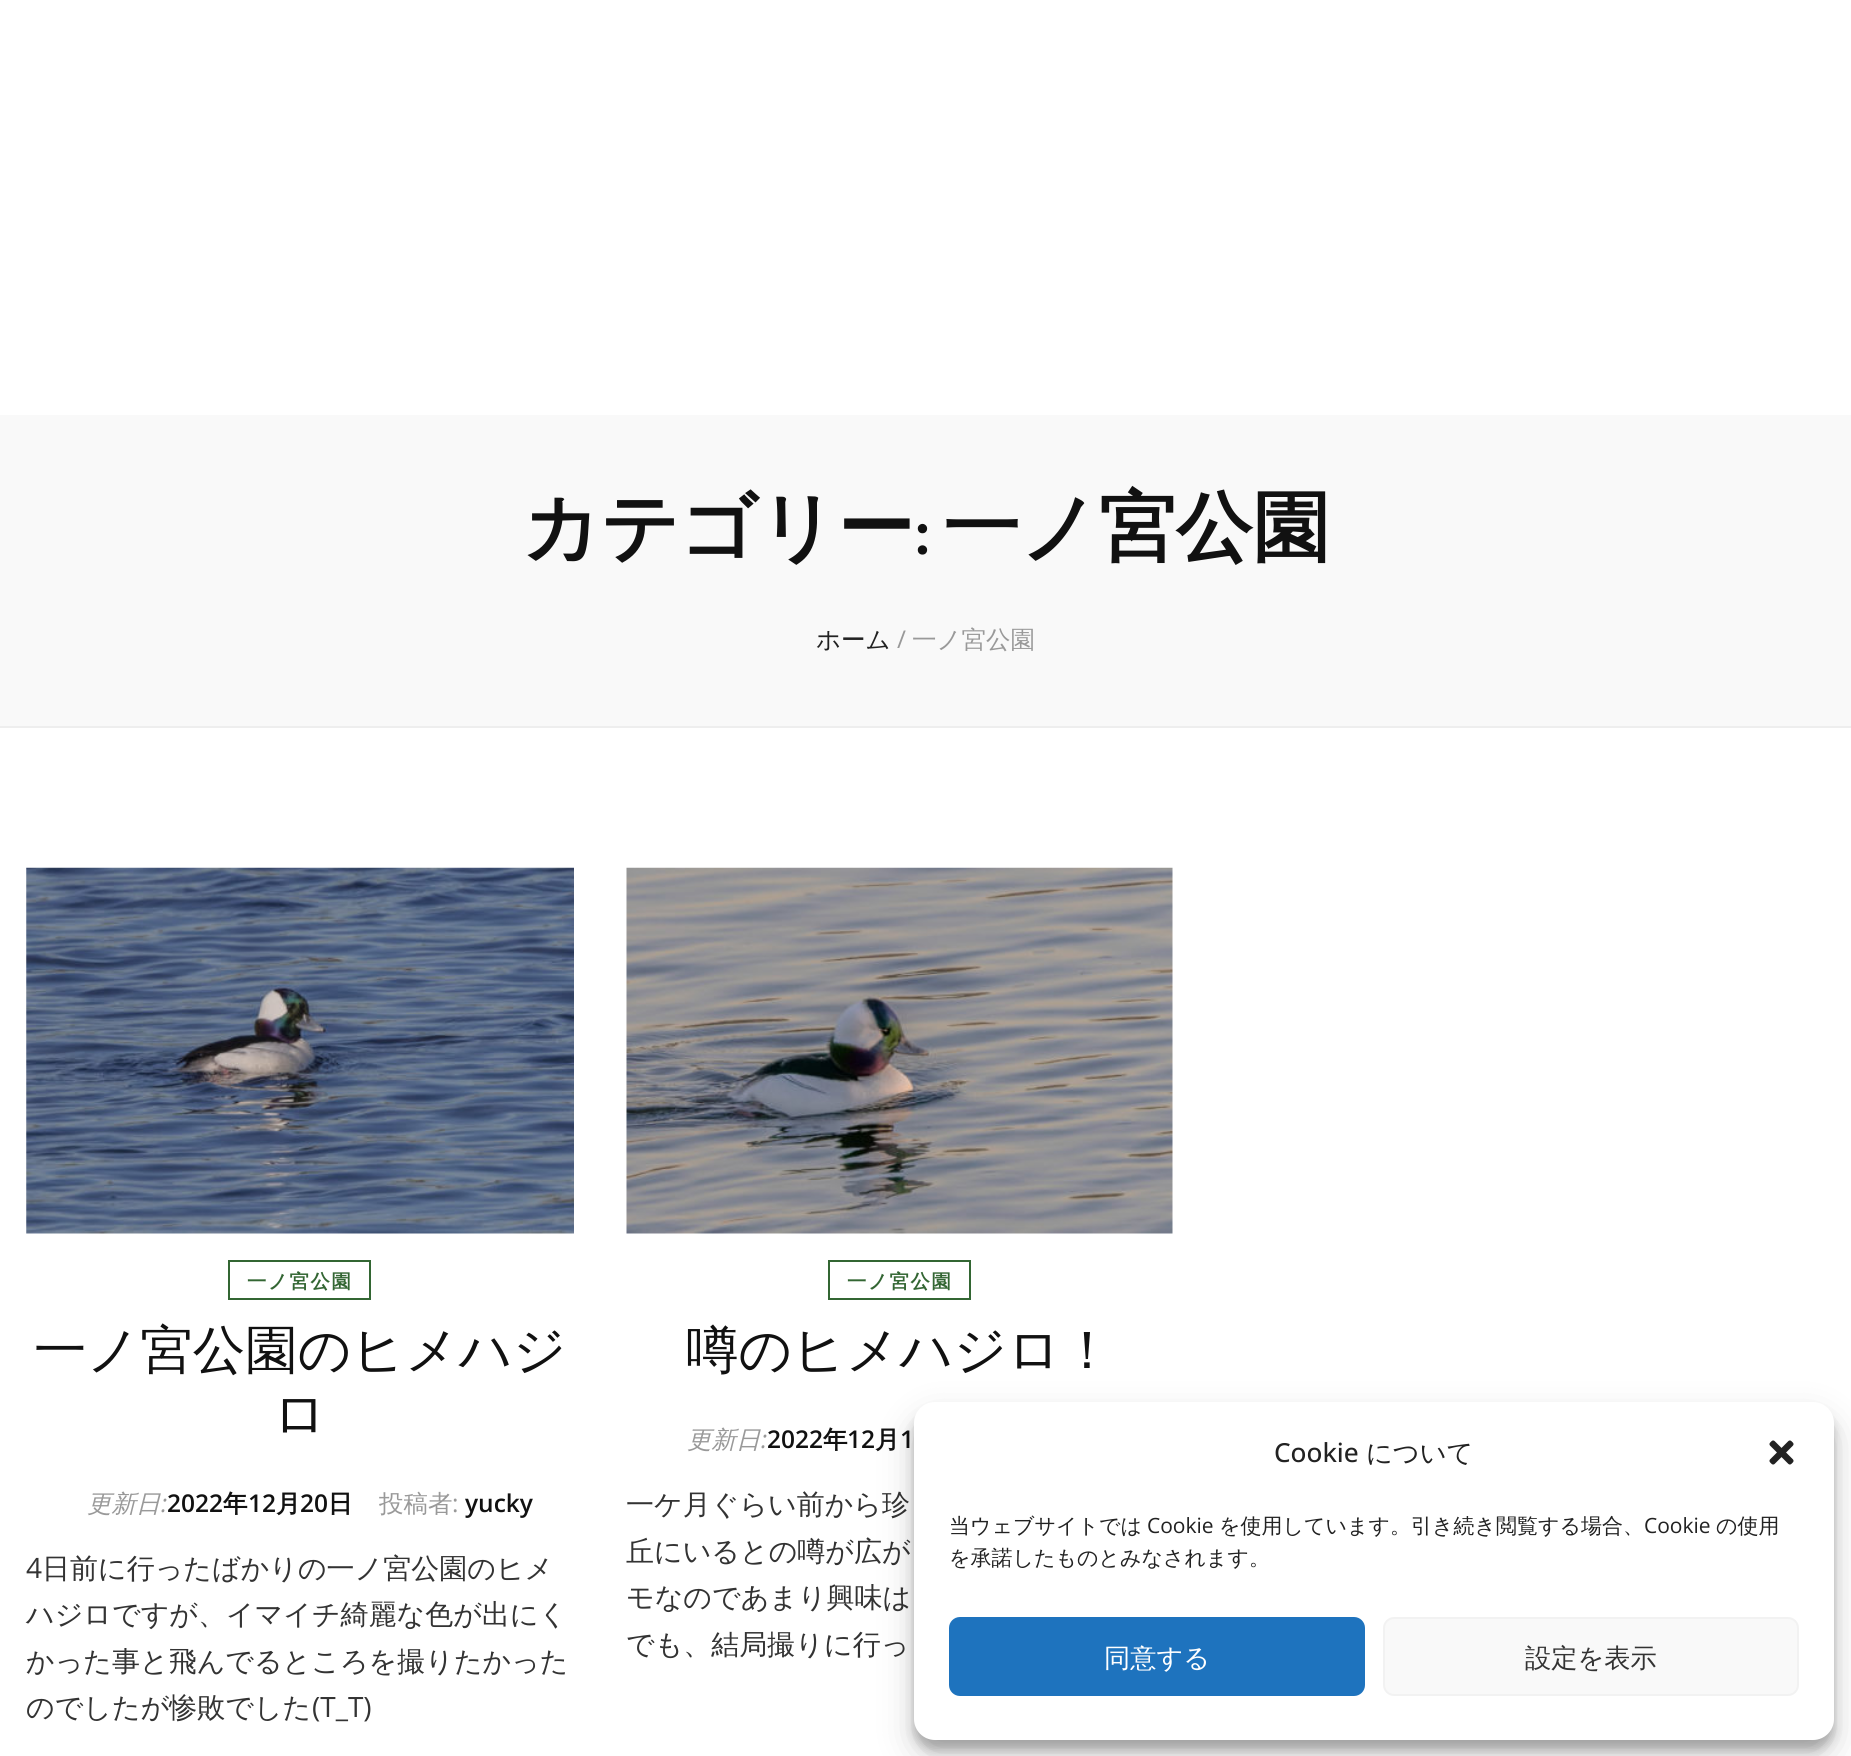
#include <cairo.h>
#include <math.h>
#include <stddef.h>


static void set_color(cairo_t *cr, unsigned color) {
    cairo_set_source_rgb(cr, (color >> 16) / 255.0, (color >> 8 & 255) / 255.0, (color & 255) / 255.0);
}

static void draw_text(cairo_t *cr, double x, double y, const char *s, const char *family, double size, int italic, int bold, unsigned color) {
    cairo_select_font_face(cr, family, italic ? CAIRO_FONT_SLANT_ITALIC : CAIRO_FONT_SLANT_NORMAL,
        bold ? CAIRO_FONT_WEIGHT_BOLD : CAIRO_FONT_WEIGHT_NORMAL);
    cairo_set_font_size(cr, size);
    set_color(cr, color);
    cairo_move_to(cr, x, y);
    cairo_show_text(cr, s);
}

static void draw_spaced(cairo_t *cr, double x, double y, const char *s, double letter, double word) {
    cairo_move_to(cr, x, y);
    while (*s) {
        char ch[5] = {0};
        int n = 0;
        do ch[n++] = *s++; while ((*s & 0xC0) == 0x80);
        cairo_show_text(cr, ch);
        cairo_rel_move_to(cr, letter + word * (*ch == ' '), 0);
    }
}

static void fill_rect(cairo_t *cr, double x, double y, double w, double h, unsigned color) {
    set_color(cr, color);
    cairo_rectangle(cr, x, y, w, h);
    cairo_fill(cr);
}

static void rounded_rect(cairo_t *cr, double x, double y, double w, double h, double r) {
    cairo_new_sub_path(cr);
    cairo_arc(cr, x + w - r, y + h - r, r, 0, M_PI / 2);
    cairo_arc(cr, x + r, y + h - r, r, M_PI / 2, M_PI);
    cairo_arc(cr, x + r, y + r, r, M_PI, 1.5 * M_PI);
    cairo_arc(cr, x + w - r, y + r, r, 1.5 * M_PI, 2 * M_PI);
    cairo_close_path(cr);
}

static void draw_shadow(cairo_t *cr, double x, double y, double w, double h, double r, double blur, double alpha) {
    cairo_push_group_with_content(cr, CAIRO_CONTENT_ALPHA);
    cairo_set_operator(cr, CAIRO_OPERATOR_SOURCE);
    for (int i = 15; i >= -15 && fmin(w, h) + blur * i / 3 > 0; i -= 2) {
        double e = blur * i / 6;
        cairo_set_source_rgba(cr, 0, 0, 0, alpha * erfc((i - 1) / 8.5) / 2);
        rounded_rect(cr, x - e, y - e, w + 2 * e, h + 2 * e, fmax(0, fmin(r + e + blur * .6, fmin(w, h) / 2 + e)));
        cairo_fill(cr);
    }
    cairo_pattern_t *soft = cairo_pop_group(cr);
    cairo_mask(cr, soft);
    cairo_pattern_destroy(soft);
}

static void draw_image(cairo_t *cr, const char *path, double x, double y, double w, double h) {
    cairo_surface_t *image = cairo_image_surface_create_from_png(path);
    cairo_save(cr);
    cairo_set_source_surface(cr, image, x, y);
    cairo_rectangle(cr, x, y, w, h);
    cairo_fill(cr);
    cairo_restore(cr);
    cairo_surface_destroy(image);
}

int main(void) {
    cairo_surface_t *surface = cairo_image_surface_create(CAIRO_FORMAT_RGB24, 1851, 1756);
    cairo_t *cr = cairo_create(surface);
    cairo_font_options_t *options = cairo_font_options_create();
    cairo_font_options_set_hint_metrics(options, CAIRO_HINT_METRICS_OFF);
    cairo_font_options_set_hint_style(options, CAIRO_HINT_STYLE_NONE);
    cairo_set_font_options(cr, options);
    cairo_set_miter_limit(cr, 4);
    set_color(cr, 0xFFFFFF);
    cairo_paint(cr);
    fill_rect(cr, 0, 415, 1851, 311, 0xF9F9F9);
    fill_rect(cr, 0, 726, 1851, 2, 0xEEEEEE);
    draw_text(cr, 522, 554, "カテゴリー", "WenQuanYi Zen Hei", 77, 0, 1, 0x111111);
    draw_text(cr, 914, 554, ":", "Suranna", 77, 0, 1, 0x111111);
    draw_text(cr, 943, 554, "一ノ宮公園", "WenQuanYi Zen Hei", 77, 0, 1, 0x111111);
    draw_text(cr, 816, 648, "ホーム", "WenQuanYi Zen Hei Medium", 24.5, 0, 0, 0x222222);
    draw_text(cr, 897, 648, "/", "Open Sans", 24.5, 0, 0, 0x999999);
    draw_text(cr, 912, 648, "一ノ宮公園", "WenQuanYi Zen Hei Medium", 24.5, 0, 0, 0x999999);
    draw_image(cr, "assets/img1.png", 26, 867, 548, 367);
    cairo_rectangle(cr, 229, 1261, 141, 38);
    set_color(cr, 0x336633);
    cairo_stroke(cr);
    cairo_select_font_face(cr, "WenQuanYi Zen Hei", CAIRO_FONT_SLANT_NORMAL, CAIRO_FONT_WEIGHT_BOLD);
    cairo_set_font_size(cr, 19.25);
    draw_spaced(cr, 247, 1288, "一ノ宮公園", 1.75, 0);
    draw_text(cr, 34, 1368, "一ノ宮公園のヒメハジ", "WenQuanYi Zen Hei Medium", 52.5, 0, 0, 0x111111);
    draw_text(cr, 273, 1432, "ロ", "WenQuanYi Zen Hei Medium", 52.5, 0, 0, 0x111111);
    draw_text(cr, 87, 1512, "更新日", "WenQuanYi Zen Hei Medium", 24.5, 1, 0, 0x999999);
    draw_text(cr, 161, 1512, ":", "Open Sans", 24.5, 1, 0, 0x999999);
    draw_text(cr, 167, 1512, "2022", "Open Sans SemiBold", 24.5, 0, 0, 0x111111);
    draw_text(cr, 223, 1512, "年", "WenQuanYi Zen Hei", 24.5, 0, 1, 0x111111);
    draw_text(cr, 248, 1512, "12", "Open Sans SemiBold", 24.5, 0, 0, 0x111111);
    draw_text(cr, 276, 1512, "月", "WenQuanYi Zen Hei", 24.5, 0, 1, 0x111111);
    draw_text(cr, 300, 1512, "20", "Open Sans SemiBold", 24.5, 0, 0, 0x111111);
    draw_text(cr, 328, 1512, "日", "WenQuanYi Zen Hei", 24.5, 0, 1, 0x111111);
    draw_text(cr, 379, 1512, "投稿者", "WenQuanYi Zen Hei Medium", 24.5, 0, 0, 0x999999);
    draw_text(cr, 452, 1512, ":", "Open Sans", 24.5, 0, 0, 0x999999);
    draw_text(cr, 465, 1512, "yucky", "Open Sans SemiBold", 24.5, 0, 0, 0x111111);
    draw_text(cr, 26, 1578, "4", "Open Sans", 28, 0, 0, 0x333333);
    draw_text(cr, 42, 1578, "日前に行ったばかりの一ノ宮公園のヒメ", "WenQuanYi Zen Hei Medium", 28, 0, 0, 0x333333);
    draw_text(cr, 26, 1624, "ハジロですが、イマイチ綺麗な色が出にく", "WenQuanYi Zen Hei Medium", 28, 0, 0, 0x333333);
    draw_text(cr, 26, 1671, "かった事と飛んでるところを撮りたかった", "WenQuanYi Zen Hei Medium", 28, 0, 0, 0x333333);
    draw_text(cr, 26, 1717, "のでしたが惨敗でした", "WenQuanYi Zen Hei Medium", 28, 0, 0, 0x333333);
    draw_text(cr, 312, 1717, "(T_T)", "Open Sans", 28, 0, 0, 0x333333);
    draw_image(cr, "assets/img2.png", 626, 867, 547, 367);
    cairo_rectangle(cr, 829, 1261, 141, 38);
    set_color(cr, 0x336633);
    cairo_stroke(cr);
    cairo_select_font_face(cr, "WenQuanYi Zen Hei", CAIRO_FONT_SLANT_NORMAL, CAIRO_FONT_WEIGHT_BOLD);
    cairo_set_font_size(cr, 19.25);
    draw_spaced(cr, 847, 1288, "一ノ宮公園", 1.75, 0);
    draw_text(cr, 686, 1368, "噂のヒメハジロ！", "WenQuanYi Zen Hei Medium", 52.5, 0, 0, 0x111111);
    draw_text(cr, 687, 1448, "更新日", "WenQuanYi Zen Hei Medium", 24.5, 1, 0, 0x999999);
    draw_text(cr, 761, 1448, ":", "Open Sans", 24.5, 1, 0, 0x999999);
    draw_text(cr, 767, 1448, "2022", "Open Sans SemiBold", 24.5, 0, 0, 0x111111);
    draw_text(cr, 823, 1448, "年", "WenQuanYi Zen Hei", 24.5, 0, 1, 0x111111);
    draw_text(cr, 847, 1448, "12", "Open Sans SemiBold", 24.5, 0, 0, 0x111111);
    draw_text(cr, 875, 1448, "月", "WenQuanYi Zen Hei", 24.5, 0, 1, 0x111111);
    draw_text(cr, 900, 1448, "1", "Open Sans SemiBold", 24.5, 0, 0, 0x111111);
    draw_text(cr, 626, 1514, "一ケ月ぐらい前から珍", "WenQuanYi Zen Hei Medium", 28, 0, 0, 0x333333);
    draw_text(cr, 626, 1561, "丘にいるとの噂が広が", "WenQuanYi Zen Hei Medium", 28, 0, 0, 0x333333);
    draw_text(cr, 626, 1607, "モなのであまり興味は", "WenQuanYi Zen Hei Medium", 28, 0, 0, 0x333333);
    draw_text(cr, 626, 1654, "でも、結局撮りに行っ", "WenQuanYi Zen Hei Medium", 28, 0, 0, 0x333333);
    set_color(cr, 0x000000);
    draw_shadow(cr, 914, 1412, 920, 338, 21, 5, 0.23);
    draw_shadow(cr, 914, 1419, 920, 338, 21, 17.5, 0.19);
    set_color(cr, 0xFFFFFF);
    rounded_rect(cr, 914, 1402, 920, 338, 21);
    cairo_fill(cr);
    draw_text(cr, 1274, 1462, "Cookie", "Open Sans Medium", 26.25, 0, 0, 0x222222);
    draw_text(cr, 1366, 1462, "について", "WenQuanYi Zen Hei Medium", 26.25, 0, 0, 0x222222);
    draw_image(cr, "assets/img3.png", 1769, 1440, 25, 25);
    draw_text(cr, 949, 1533, "当ウェブサイトでは", "WenQuanYi Zen Hei Medium", 21, 0, 0, 0x222222);
    draw_text(cr, 1147, 1533, "Cookie", "Open Sans", 21, 0, 0, 0x222222);
    draw_text(cr, 1219, 1533, "を使用しています。引き続き閲覧する場合、", "WenQuanYi Zen Hei Medium", 21, 0, 0, 0x222222);
    draw_text(cr, 1644, 1533, "Cookie", "Open Sans", 21, 0, 0, 0x222222);
    draw_text(cr, 1716, 1533, "の使用", "WenQuanYi Zen Hei Medium", 21, 0, 0, 0x222222);
    draw_text(cr, 949, 1565, "を承諾したものとみなされます。", "WenQuanYi Zen Hei Medium", 21, 0, 0, 0x222222);
    set_color(cr, 0x1E73BE);
    rounded_rect(cr, 950, 1618, 414, 77, 10);
    cairo_fill_preserve(cr);
    cairo_stroke(cr);
    draw_text(cr, 1104, 1667, "同意する", "WenQuanYi Zen Hei Medium", 26.25, 0, 0, 0xFFFFFF);
    set_color(cr, 0xF9F9F9);
    rounded_rect(cr, 1384, 1618, 414, 77, 10);
    cairo_fill_preserve(cr);
    set_color(cr, 0xF2F2F2);
    cairo_stroke(cr);
    draw_text(cr, 1525, 1667, "設定を表示", "WenQuanYi Zen Hei Medium", 26.25, 0, 0, 0x333333);
    cairo_surface_write_to_png(surface, "output.png");
    cairo_font_options_destroy(options);
    cairo_destroy(cr);
    cairo_surface_destroy(surface);
    return 0;
}
